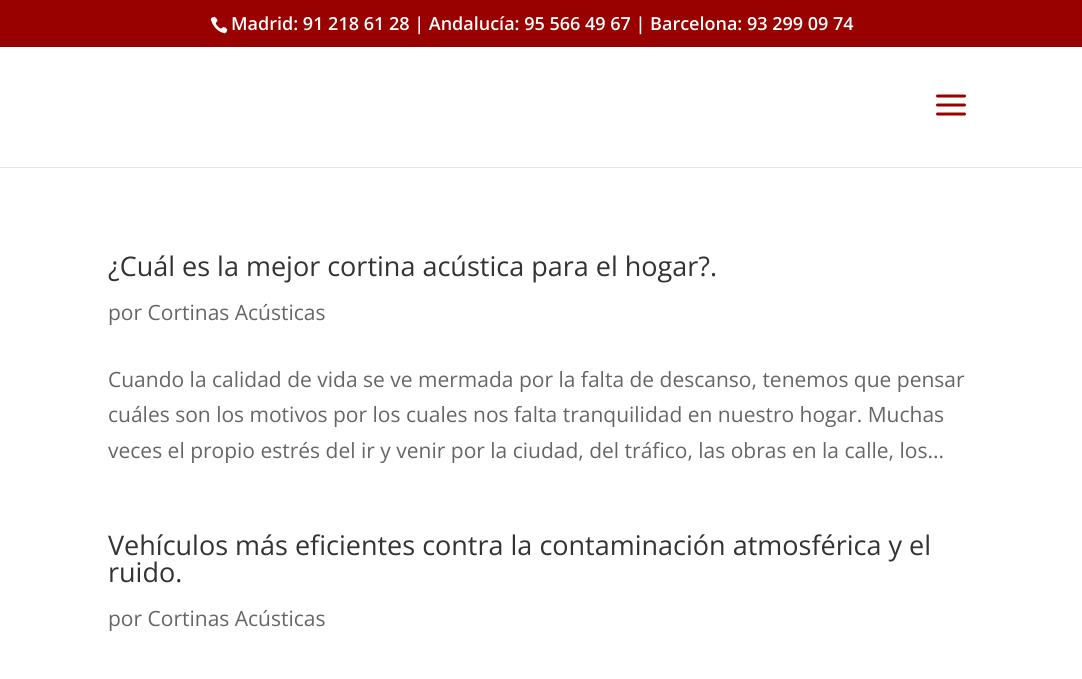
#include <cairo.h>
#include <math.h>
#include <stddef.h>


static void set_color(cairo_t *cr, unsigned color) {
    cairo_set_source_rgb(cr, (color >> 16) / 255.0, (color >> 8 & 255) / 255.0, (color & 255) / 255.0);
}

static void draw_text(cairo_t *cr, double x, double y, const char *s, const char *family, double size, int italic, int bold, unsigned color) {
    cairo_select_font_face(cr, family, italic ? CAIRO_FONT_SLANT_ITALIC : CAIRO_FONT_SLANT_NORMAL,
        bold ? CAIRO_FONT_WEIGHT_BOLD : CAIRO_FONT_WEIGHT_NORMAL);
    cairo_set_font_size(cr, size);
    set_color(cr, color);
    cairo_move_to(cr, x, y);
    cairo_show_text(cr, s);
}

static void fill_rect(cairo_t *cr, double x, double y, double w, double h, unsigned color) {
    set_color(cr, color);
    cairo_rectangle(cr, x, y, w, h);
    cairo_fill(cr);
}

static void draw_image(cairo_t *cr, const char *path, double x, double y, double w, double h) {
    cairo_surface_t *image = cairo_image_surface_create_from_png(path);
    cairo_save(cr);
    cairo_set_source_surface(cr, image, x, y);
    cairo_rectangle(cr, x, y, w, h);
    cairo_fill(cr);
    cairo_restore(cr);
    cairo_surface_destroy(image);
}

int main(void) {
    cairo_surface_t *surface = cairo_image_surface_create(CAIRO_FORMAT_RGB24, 1082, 679);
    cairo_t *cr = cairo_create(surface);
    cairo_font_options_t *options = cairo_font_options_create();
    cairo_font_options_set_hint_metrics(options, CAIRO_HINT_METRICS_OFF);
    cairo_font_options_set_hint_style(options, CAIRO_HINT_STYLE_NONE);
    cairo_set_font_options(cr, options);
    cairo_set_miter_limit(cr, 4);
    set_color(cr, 0xFFFFFF);
    cairo_paint(cr);
    fill_rect(cr, 0, 0, 1082, 47, 0x990000);
    draw_image(cr, "assets/img1.png", 210, 16, 18, 18);
    draw_text(cr, 231, 30, "Madrid: 91 218 61 28 | Andalucía: 95 566 49 67 | Barcelona: 93 299 09 74", "Open Sans SemiBold", 18, 0, 0, 0xFFFFFF);
    fill_rect(cr, 0, 167, 1082, 1, 0xE6E6E6);
    draw_image(cr, "assets/img2.png", 936, 94, 30, 22);
    draw_text(cr, 108, 276, "¿Cuál es la mejor cortina acústica para el hogar?.", "Open Sans", 27, 0, 0, 0x333333);
    draw_text(cr, 108, 320, "por Cortinas Acústicas", "Open Sans", 21, 0, 0, 0x666666);
    draw_text(cr, 108, 387, "Cuando la calidad de vida se ve mermada por la falta de descanso, tenemos que pensar", "Open Sans", 21, 0, 0, 0x666666);
    draw_text(cr, 108, 422, "cuáles son los motivos por los cuales nos falta tranquilidad en nuestro hogar. Muchas", "Open Sans", 21, 0, 0, 0x666666);
    draw_text(cr, 108, 458, "veces el propio estrés del ir y venir por la ciudad, del tráfico, las obras en la calle, los...", "Open Sans", 21, 0, 0, 0x666666);
    draw_text(cr, 108, 555, "Vehículos más eficientes contra la contaminación atmosférica y el", "Open Sans", 27, 0, 0, 0x333333);
    draw_text(cr, 108, 582, "ruido.", "Open Sans", 27, 0, 0, 0x333333);
    draw_text(cr, 108, 626, "por Cortinas Acústicas", "Open Sans", 21, 0, 0, 0x666666);
    cairo_surface_write_to_png(surface, "output.png");
    cairo_font_options_destroy(options);
    cairo_destroy(cr);
    cairo_surface_destroy(surface);
    return 0;
}
